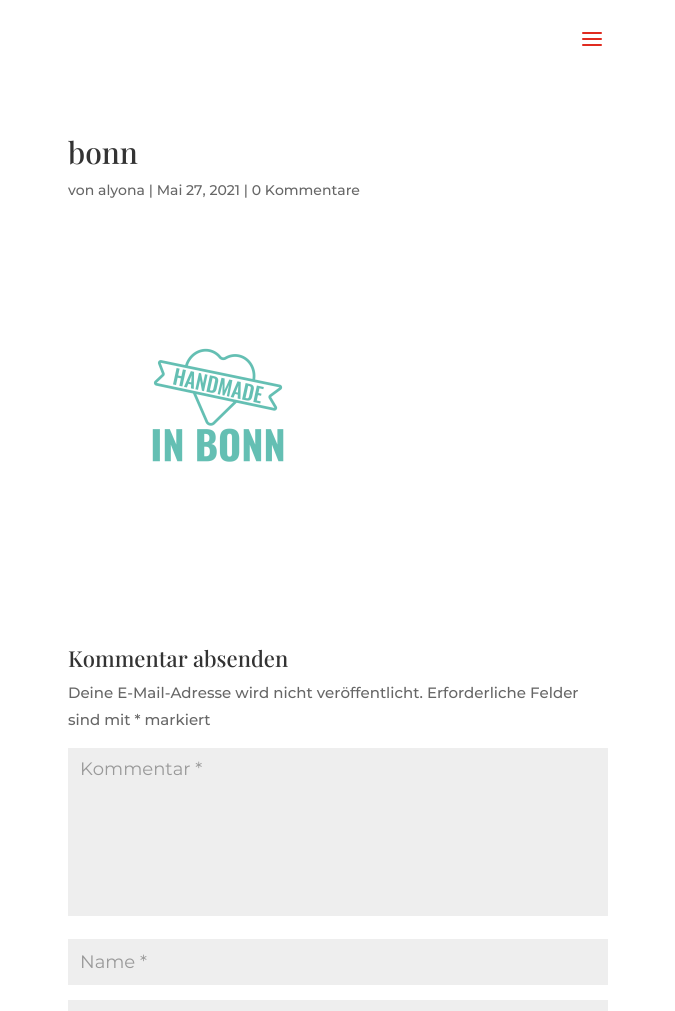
#include <cairo.h>
#include <math.h>
#include <stddef.h>


static void set_color(cairo_t *cr, unsigned color) {
    cairo_set_source_rgb(cr, (color >> 16) / 255.0, (color >> 8 & 255) / 255.0, (color & 255) / 255.0);
}

static void draw_text(cairo_t *cr, double x, double y, const char *s, const char *family, double size, int italic, int bold, unsigned color) {
    cairo_select_font_face(cr, family, italic ? CAIRO_FONT_SLANT_ITALIC : CAIRO_FONT_SLANT_NORMAL,
        bold ? CAIRO_FONT_WEIGHT_BOLD : CAIRO_FONT_WEIGHT_NORMAL);
    cairo_set_font_size(cr, size);
    set_color(cr, color);
    cairo_move_to(cr, x, y);
    cairo_show_text(cr, s);
}

static void fill_rect(cairo_t *cr, double x, double y, double w, double h, unsigned color) {
    set_color(cr, color);
    cairo_rectangle(cr, x, y, w, h);
    cairo_fill(cr);
}

static void draw_image(cairo_t *cr, const char *path, double x, double y, double w, double h) {
    cairo_surface_t *image = cairo_image_surface_create_from_png(path);
    cairo_save(cr);
    cairo_set_source_surface(cr, image, x, y);
    cairo_rectangle(cr, x, y, w, h);
    cairo_fill(cr);
    cairo_restore(cr);
    cairo_surface_destroy(image);
}

int main(void) {
    cairo_surface_t *surface = cairo_image_surface_create(CAIRO_FORMAT_RGB24, 675, 1011);
    cairo_t *cr = cairo_create(surface);
    cairo_font_options_t *options = cairo_font_options_create();
    cairo_font_options_set_hint_metrics(options, CAIRO_HINT_METRICS_OFF);
    cairo_font_options_set_hint_style(options, CAIRO_HINT_STYLE_NONE);
    cairo_set_font_options(cr, options);
    cairo_set_miter_limit(cr, 4);
    set_color(cr, 0xFFFFFF);
    cairo_paint(cr);
    draw_image(cr, "assets/img1.png", 582, 32, 20, 14);
    draw_text(cr, 68, 164, "bonn", "Playfair Display Medium", 30, 0, 0, 0x333333);
    draw_text(cr, 68, 195, "von alyona | Mai 27, 2021 | 0 Kommentare", "Montserrat Medium", 14, 0, 0, 0x666666);
    draw_image(cr, "assets/img2.png", 152, 348, 132, 114);
    draw_text(cr, 68, 667, "Kommentar absenden", "Playfair Display Medium", 22, 0, 0, 0x333333);
    draw_text(cr, 68, 698, "Deine E-Mail-Adresse wird nicht veröffentlicht. Erforderliche Felder", "Montserrat Medium", 15, 0, 0, 0x666666);
    draw_text(cr, 68, 725, "sind mit * markiert", "Montserrat Medium", 15, 0, 0, 0x666666);
    fill_rect(cr, 68, 748, 540, 168, 0xEEEEEE);
    draw_text(cr, 80, 775, "Kommentar *", "Montserrat", 18, 0, 0, 0x999999);
    fill_rect(cr, 68, 939, 540, 46, 0xEEEEEE);
    draw_text(cr, 80, 968, "Name *", "Montserrat", 18, 0, 0, 0x999999);
    fill_rect(cr, 68, 1000, 540, 11, 0xEEEEEE);
    cairo_surface_write_to_png(surface, "output.png");
    cairo_font_options_destroy(options);
    cairo_destroy(cr);
    cairo_surface_destroy(surface);
    return 0;
}
